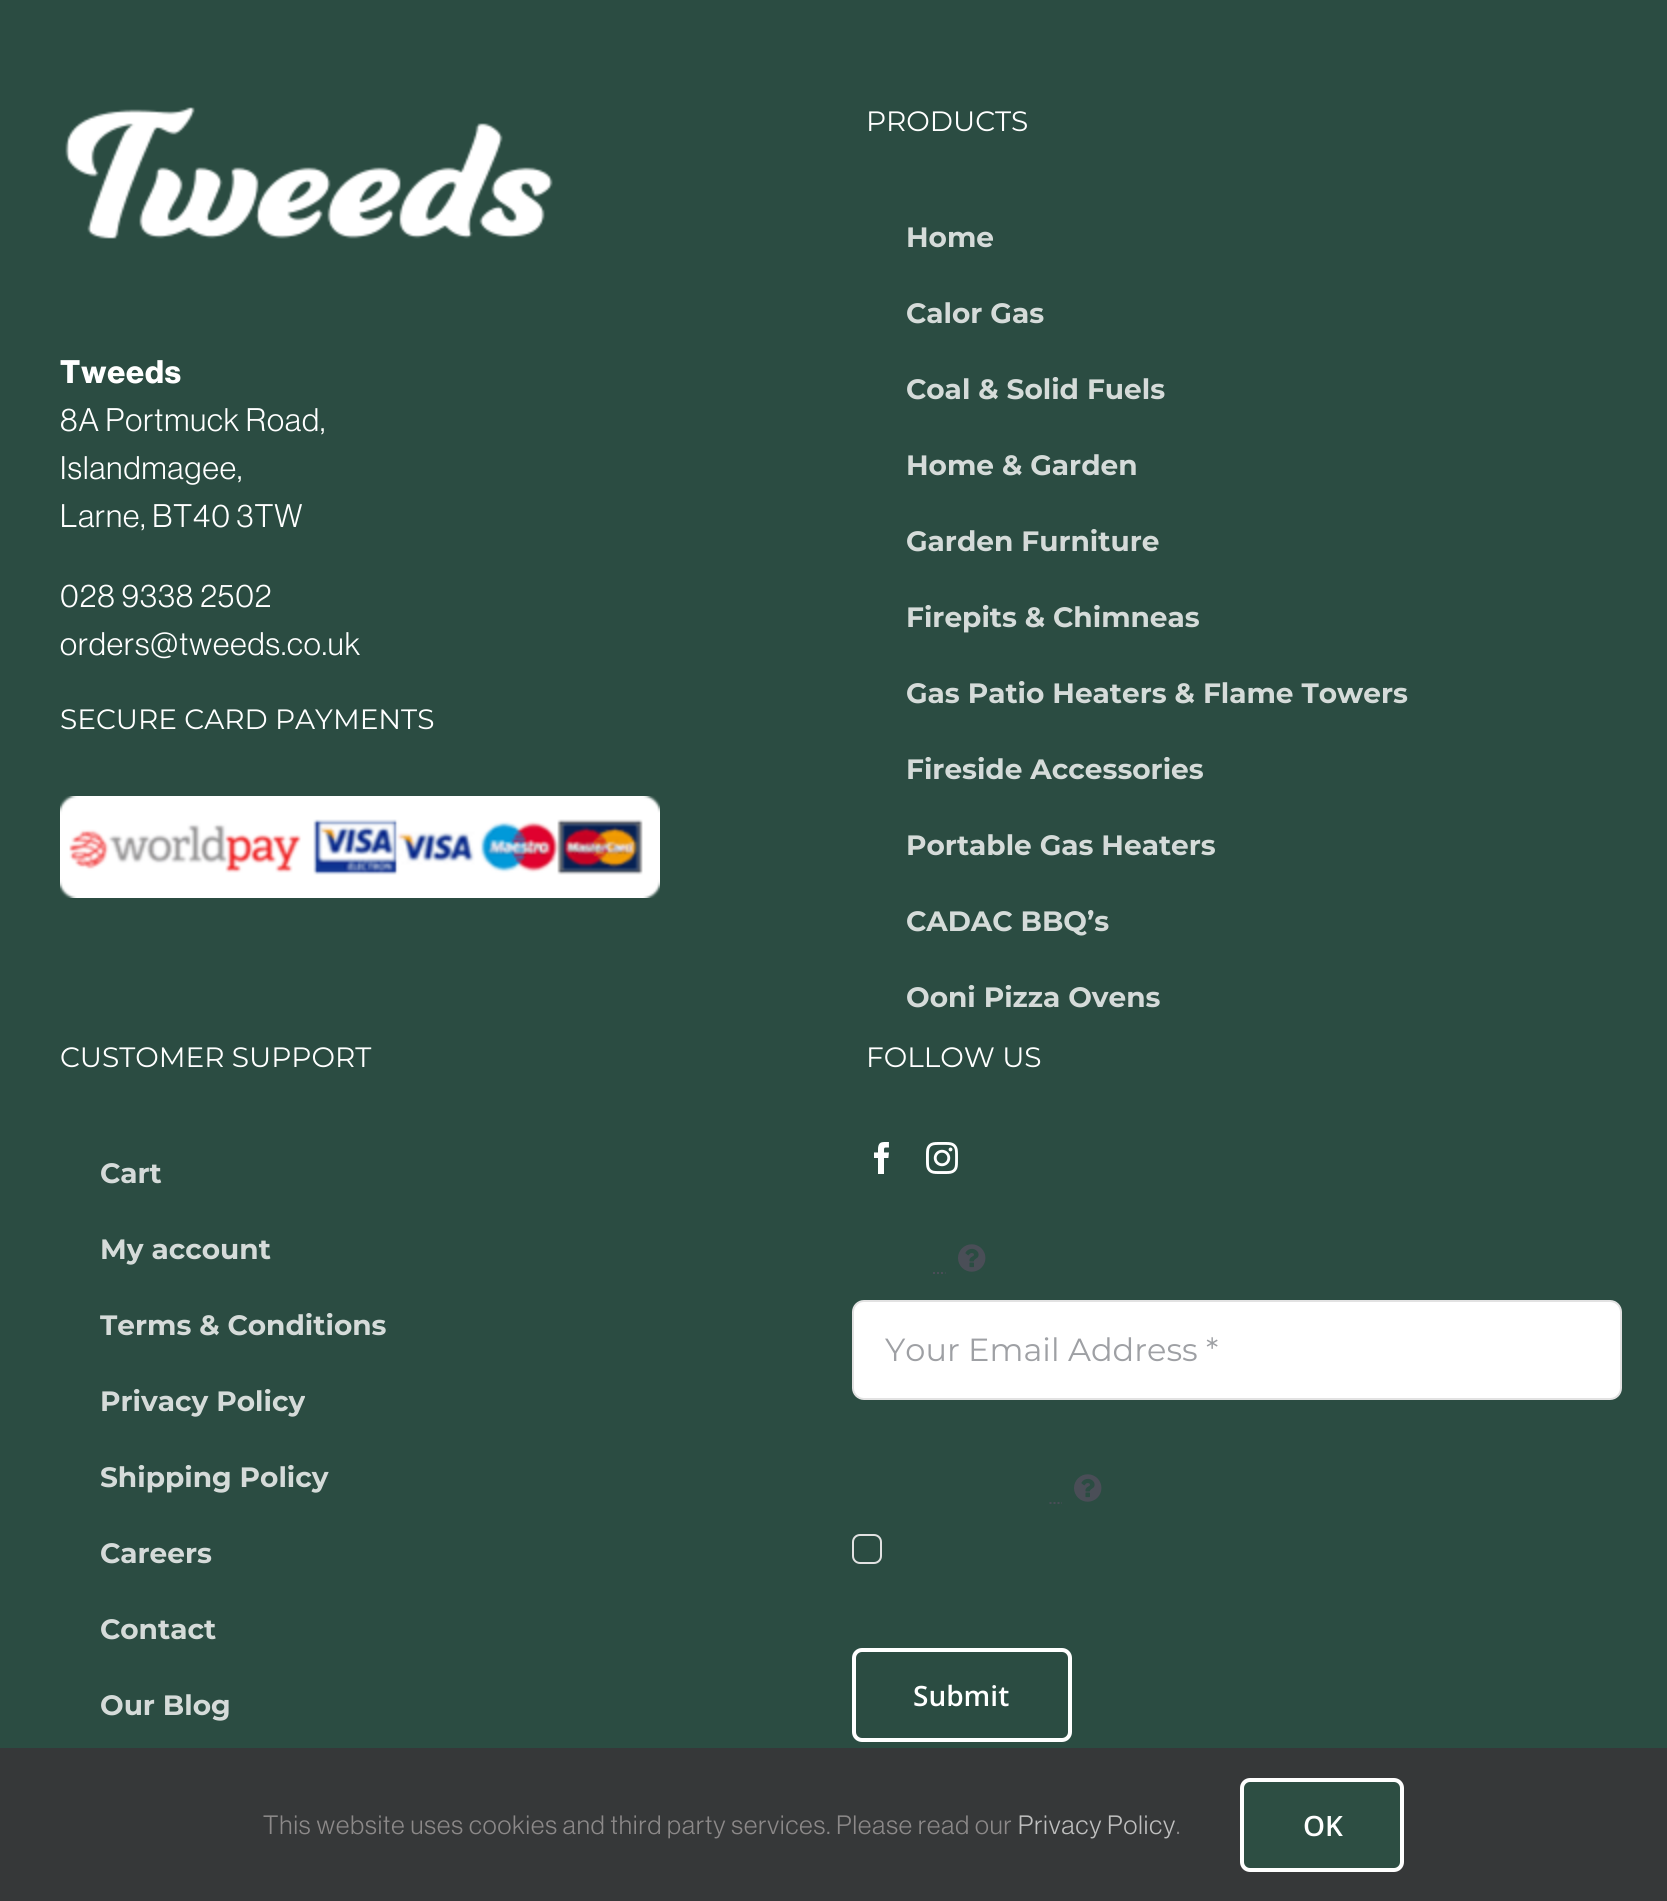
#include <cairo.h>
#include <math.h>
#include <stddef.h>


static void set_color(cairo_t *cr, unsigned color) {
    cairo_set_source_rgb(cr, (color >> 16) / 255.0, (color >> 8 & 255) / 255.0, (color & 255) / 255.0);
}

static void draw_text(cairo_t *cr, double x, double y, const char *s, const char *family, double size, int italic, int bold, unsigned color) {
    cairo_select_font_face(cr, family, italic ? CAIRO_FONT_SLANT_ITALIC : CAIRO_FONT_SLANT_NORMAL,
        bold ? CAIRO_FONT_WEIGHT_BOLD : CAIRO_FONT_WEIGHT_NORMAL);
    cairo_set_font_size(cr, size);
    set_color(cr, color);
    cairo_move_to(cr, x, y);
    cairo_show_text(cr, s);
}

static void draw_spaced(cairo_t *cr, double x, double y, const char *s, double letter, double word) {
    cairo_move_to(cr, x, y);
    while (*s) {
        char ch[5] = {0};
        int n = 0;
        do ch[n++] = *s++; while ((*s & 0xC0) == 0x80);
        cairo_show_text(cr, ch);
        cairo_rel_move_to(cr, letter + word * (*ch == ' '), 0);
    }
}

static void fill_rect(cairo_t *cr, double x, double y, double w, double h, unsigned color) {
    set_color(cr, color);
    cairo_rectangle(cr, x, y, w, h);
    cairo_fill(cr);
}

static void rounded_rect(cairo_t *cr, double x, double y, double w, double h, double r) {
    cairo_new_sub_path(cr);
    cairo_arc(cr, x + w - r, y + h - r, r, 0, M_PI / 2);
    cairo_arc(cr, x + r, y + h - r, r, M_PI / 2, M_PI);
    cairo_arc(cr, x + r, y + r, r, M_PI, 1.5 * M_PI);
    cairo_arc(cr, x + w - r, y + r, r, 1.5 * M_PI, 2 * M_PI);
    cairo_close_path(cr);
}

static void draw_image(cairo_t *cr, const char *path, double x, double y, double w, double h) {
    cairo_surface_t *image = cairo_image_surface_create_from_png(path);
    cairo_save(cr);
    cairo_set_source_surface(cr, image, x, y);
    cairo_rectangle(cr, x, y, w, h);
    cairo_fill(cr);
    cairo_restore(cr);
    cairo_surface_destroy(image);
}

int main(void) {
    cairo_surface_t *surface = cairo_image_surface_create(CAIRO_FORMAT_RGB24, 1667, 1901);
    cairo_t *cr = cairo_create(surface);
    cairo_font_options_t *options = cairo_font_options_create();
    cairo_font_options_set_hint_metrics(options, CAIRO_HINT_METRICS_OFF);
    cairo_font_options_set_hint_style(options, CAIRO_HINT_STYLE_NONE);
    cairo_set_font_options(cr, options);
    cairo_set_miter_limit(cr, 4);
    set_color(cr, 0x2B4C42);
    cairo_paint(cr);
    draw_image(cr, "assets/img1.png", 65, 107, 488, 132);
    cairo_select_font_face(cr, "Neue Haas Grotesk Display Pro", CAIRO_FONT_SLANT_NORMAL, CAIRO_FONT_WEIGHT_BOLD);
    cairo_set_font_size(cr, 32);
    set_color(cr, 0xFFFFFF);
    draw_spaced(cr, 60, 383, "Tweeds", 1, 0);
    cairo_select_font_face(cr, "Neue Haas Grotesk Display Pro", CAIRO_FONT_SLANT_NORMAL, CAIRO_FONT_WEIGHT_NORMAL);
    draw_spaced(cr, 60, 431, "8A Portmuck Road,", 1, 0);
    draw_spaced(cr, 60, 479, "Islandmagee,", 1, 0);
    draw_spaced(cr, 60, 527, "Larne, BT40 3TW", 1, 0);
    draw_spaced(cr, 60, 607, "028 9338 2502", 1, 0);
    draw_spaced(cr, 60, 655, "orders@tweeds.co.uk", 1, 0);
    draw_text(cr, 60, 729, "SECURE CARD PAYMENTS", "Montserrat", 28, 0, 0, 0xFFFFFF);
    draw_image(cr, "assets/img2.png", 60, 796, 600, 102);
    draw_text(cr, 866, 131, "PRODUCTS", "Montserrat", 28, 0, 0, 0xFFFFFF);
    draw_text(cr, 906, 247, "Home", "Montserrat", 28, 0, 1, 0xD5DBD9);
    draw_text(cr, 906, 323, "Calor Gas", "Montserrat", 28, 0, 1, 0xD5DBD9);
    draw_text(cr, 906, 399, "Coal & Solid Fuels", "Montserrat", 28, 0, 1, 0xD5DBD9);
    draw_text(cr, 906, 475, "Home & Garden", "Montserrat", 28, 0, 1, 0xD5DBD9);
    draw_text(cr, 906, 551, "Garden Furniture", "Montserrat", 28, 0, 1, 0xD5DBD9);
    draw_text(cr, 906, 627, "Firepits & Chimneas", "Montserrat", 28, 0, 1, 0xD5DBD9);
    draw_text(cr, 906, 703, "Gas Patio Heaters & Flame Towers", "Montserrat", 28, 0, 1, 0xD5DBD9);
    draw_text(cr, 906, 779, "Fireside Accessories", "Montserrat", 28, 0, 1, 0xD5DBD9);
    draw_text(cr, 906, 855, "Portable Gas Heaters", "Montserrat", 28, 0, 1, 0xD5DBD9);
    draw_text(cr, 906, 931, "CADAC BBQ’s", "Montserrat", 28, 0, 1, 0xD5DBD9);
    draw_text(cr, 906, 1007, "Ooni Pizza Ovens", "Montserrat", 28, 0, 1, 0xD5DBD9);
    draw_text(cr, 60, 1067, "CUSTOMER SUPPORT", "Montserrat", 28, 0, 0, 0xFFFFFF);
    draw_text(cr, 100, 1183, "Cart", "Montserrat", 28, 0, 1, 0xD5DBD9);
    draw_text(cr, 100, 1259, "My account", "Montserrat", 28, 0, 1, 0xD5DBD9);
    draw_text(cr, 100, 1335, "Terms & Conditions", "Montserrat", 28, 0, 1, 0xD5DBD9);
    draw_text(cr, 100, 1411, "Privacy Policy", "Montserrat", 28, 0, 1, 0xD5DBD9);
    draw_text(cr, 100, 1487, "Shipping Policy", "Montserrat", 28, 0, 1, 0xD5DBD9);
    draw_text(cr, 100, 1563, "Careers", "Montserrat", 28, 0, 1, 0xD5DBD9);
    draw_text(cr, 100, 1639, "Contact", "Montserrat", 28, 0, 1, 0xD5DBD9);
    draw_text(cr, 100, 1715, "Our Blog", "Montserrat", 28, 0, 1, 0xD5DBD9);
    draw_text(cr, 866, 1067, "FOLLOW US", "Montserrat", 28, 0, 0, 0xFFFFFF);
    draw_image(cr, "assets/img3.png", 874, 1142, 15, 32);
    draw_image(cr, "assets/img4.png", 926, 1142, 32, 32);
    draw_image(cr, "assets/img5.png", 958, 1244, 28, 28);
    cairo_new_path(cr);
    cairo_move_to(cr, 933, 1273);
    cairo_line_to(cr, 935, 1273);
    cairo_move_to(cr, 937, 1273);
    cairo_line_to(cr, 939, 1273);
    cairo_move_to(cr, 941, 1273);
    cairo_line_to(cr, 943, 1273);
    cairo_move_to(cr, 945, 1273);
    cairo_line_to(cr, 945.5, 1273);
    set_color(cr, 0x4A4E57);
    cairo_stroke(cr);
    set_color(cr, 0xFFFFFF);
    rounded_rect(cr, 853, 1301, 768, 98, 11);
    cairo_fill_preserve(cr);
    set_color(cr, 0xE2E2E2);
    cairo_stroke(cr);
    draw_text(cr, 885, 1361, "Your Email Address *", "Montserrat", 32, 0, 0, 0x9EA0A4);
    draw_image(cr, "assets/img5.png", 1074, 1474, 28, 28);
    cairo_new_path(cr);
    cairo_move_to(cr, 1049.5, 1503);
    cairo_line_to(cr, 1051.5, 1503);
    cairo_move_to(cr, 1053.5, 1503);
    cairo_line_to(cr, 1055.5, 1503);
    cairo_move_to(cr, 1057.5, 1503);
    cairo_line_to(cr, 1059.5, 1503);
    cairo_move_to(cr, 1061.5, 1503);
    cairo_line_to(cr, 1062, 1503);
    set_color(cr, 0x4A4E57);
    cairo_stroke(cr);
    rounded_rect(cr, 853, 1535, 28, 28, 7);
    set_color(cr, 0xE2E2E2);
    cairo_stroke(cr);
    rounded_rect(cr, 854, 1650, 216, 90, 8);
    set_color(cr, 0xFFFFFF);
    cairo_set_line_width(cr, 4);
    cairo_stroke(cr);
    draw_text(cr, 913, 1706, "Submit", "Open Sans SemiBold", 28, 0, 0, 0xFFFFFF);
    fill_rect(cr, 0, 1748, 1667, 153, 0x363839);
    cairo_select_font_face(cr, "Neue Haas Grotesk Display Pro", CAIRO_FONT_SLANT_NORMAL, CAIRO_FONT_WEIGHT_NORMAL);
    cairo_set_font_size(cr, 26);
    set_color(cr, 0x8C8989);
    draw_spaced(cr, 263, 1834, "This website uses cookies and third party services. Please read our", 1, 0);
    set_color(cr, 0xBFBFBF);
    draw_spaced(cr, 1018, 1834, "Privacy Policy", 1, 0);
    set_color(cr, 0x8C8989);
    draw_spaced(cr, 1176, 1834, ".", 1, 0);
    set_color(cr, 0x2D4E43);
    rounded_rect(cr, 1242, 1780, 160, 90, 8);
    cairo_fill_preserve(cr);
    set_color(cr, 0xFFFFFF);
    cairo_stroke(cr);
    draw_text(cr, 1303, 1836, "OK", "Open Sans SemiBold", 28, 0, 0, 0xFFFFFF);
    cairo_surface_write_to_png(surface, "output.png");
    cairo_font_options_destroy(options);
    cairo_destroy(cr);
    cairo_surface_destroy(surface);
    return 0;
}
